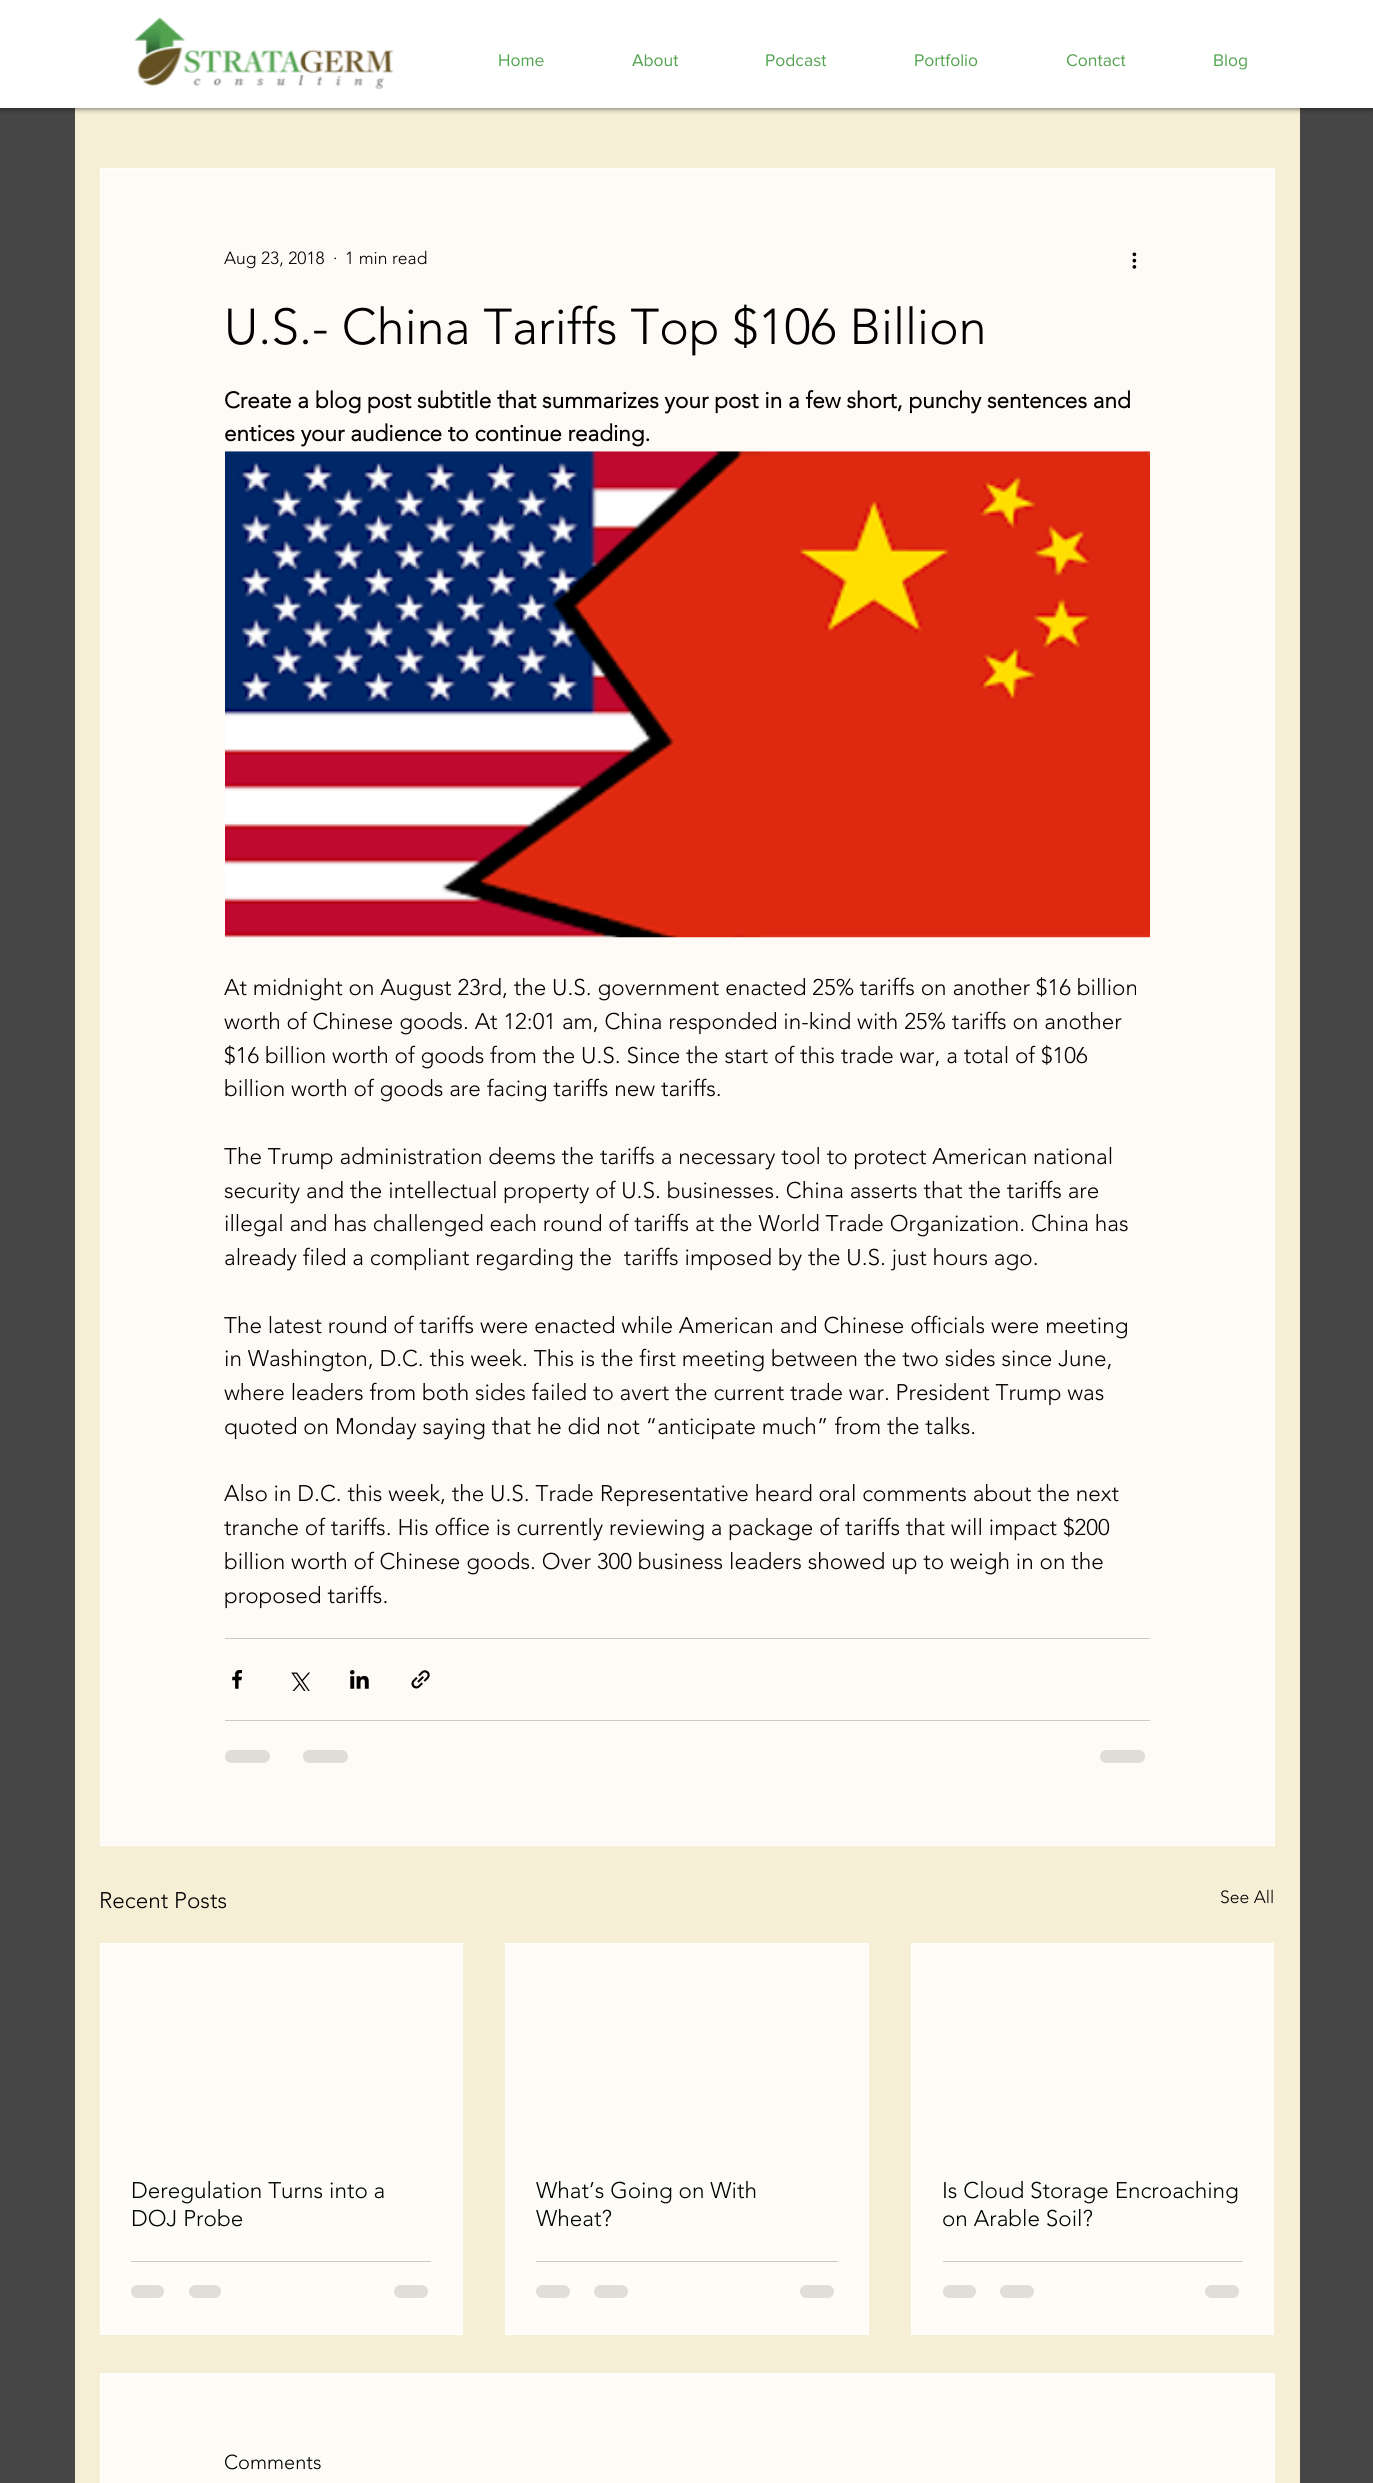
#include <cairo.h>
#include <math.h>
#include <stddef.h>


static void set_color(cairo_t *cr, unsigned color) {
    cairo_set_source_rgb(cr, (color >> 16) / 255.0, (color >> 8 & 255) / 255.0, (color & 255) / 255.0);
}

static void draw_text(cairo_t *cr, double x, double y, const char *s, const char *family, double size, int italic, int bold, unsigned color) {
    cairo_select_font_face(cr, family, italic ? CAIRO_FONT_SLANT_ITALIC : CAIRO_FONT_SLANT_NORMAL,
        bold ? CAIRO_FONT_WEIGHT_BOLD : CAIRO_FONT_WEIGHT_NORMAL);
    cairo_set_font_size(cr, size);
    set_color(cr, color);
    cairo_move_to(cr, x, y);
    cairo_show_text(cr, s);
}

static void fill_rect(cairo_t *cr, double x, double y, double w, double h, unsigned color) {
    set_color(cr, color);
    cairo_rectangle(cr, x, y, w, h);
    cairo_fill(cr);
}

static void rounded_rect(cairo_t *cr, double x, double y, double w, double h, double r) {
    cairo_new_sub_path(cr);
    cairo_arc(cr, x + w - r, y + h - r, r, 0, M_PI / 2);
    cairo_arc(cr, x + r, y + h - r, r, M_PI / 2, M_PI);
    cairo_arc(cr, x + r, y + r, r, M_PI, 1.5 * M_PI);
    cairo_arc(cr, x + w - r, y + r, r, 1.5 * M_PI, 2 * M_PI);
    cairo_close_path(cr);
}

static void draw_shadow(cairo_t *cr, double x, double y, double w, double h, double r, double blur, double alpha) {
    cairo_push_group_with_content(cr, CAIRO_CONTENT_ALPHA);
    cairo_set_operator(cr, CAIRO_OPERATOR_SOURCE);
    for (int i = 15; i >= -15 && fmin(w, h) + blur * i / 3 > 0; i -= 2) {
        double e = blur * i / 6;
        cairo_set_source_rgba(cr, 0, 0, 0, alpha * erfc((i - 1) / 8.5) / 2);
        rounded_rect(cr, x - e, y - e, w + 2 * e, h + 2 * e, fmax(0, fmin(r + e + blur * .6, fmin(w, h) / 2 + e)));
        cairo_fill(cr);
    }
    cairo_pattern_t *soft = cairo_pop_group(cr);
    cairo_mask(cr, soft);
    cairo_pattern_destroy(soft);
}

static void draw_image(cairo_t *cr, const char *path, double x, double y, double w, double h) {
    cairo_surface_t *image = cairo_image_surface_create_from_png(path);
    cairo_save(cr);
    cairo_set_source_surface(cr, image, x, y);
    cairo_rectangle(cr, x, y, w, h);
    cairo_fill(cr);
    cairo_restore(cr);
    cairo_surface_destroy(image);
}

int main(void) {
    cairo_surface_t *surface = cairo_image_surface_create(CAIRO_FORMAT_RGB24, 1373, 2483);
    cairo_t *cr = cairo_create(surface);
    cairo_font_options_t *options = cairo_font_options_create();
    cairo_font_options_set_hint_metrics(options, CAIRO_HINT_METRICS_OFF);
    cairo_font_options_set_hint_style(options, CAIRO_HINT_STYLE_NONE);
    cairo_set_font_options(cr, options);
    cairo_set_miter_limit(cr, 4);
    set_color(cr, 0x474646);
    cairo_paint(cr);
    fill_rect(cr, 75, 108, 1225, 2375, 0xF6EFD6);
    set_color(cr, 0x000000);
    draw_shadow(cr, 0, 0, 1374, 108, 0, 3, 0.7);
    fill_rect(cr, 0, 0, 1373, 108, 0xFFFFFF);
    draw_image(cr, "assets/img1.png", 134, 17, 260, 73);
    draw_text(cr, 498, 66, "Home", "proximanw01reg", 17.5, 0, 0, 0x53A351);
    draw_text(cr, 632, 66, "About", "proximanw01reg", 17.5, 0, 0, 0x53A351);
    draw_text(cr, 765, 66, "Podcast", "proximanw01reg", 17.5, 0, 0, 0x53A351);
    draw_text(cr, 914, 66, "Portfolio", "proximanw01reg", 17.5, 0, 0, 0x53A351);
    draw_text(cr, 1066, 66, "Contact", "proximanw01reg", 17.5, 0, 0, 0x53A351);
    draw_text(cr, 1213, 66, "Blog", "proximanw01reg", 17.5, 0, 0, 0x53A351);
    set_color(cr, 0xFEFBF7);
    cairo_rectangle(cr, 100.5, 168.5, 1174, 1677);
    cairo_fill_preserve(cr);
    set_color(cr, 0xFFFFFF);
    cairo_set_line_width(cr, 1);
    cairo_stroke(cr);
    draw_text(cr, 224, 264, "Aug 23, 2018", "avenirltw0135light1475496 Light", 17.5, 0, 0, 0x000000);
    draw_text(cr, 333, 264, "·", "avenirltw0135light1475496 Light", 17.5, 0, 0, 0x000000);
    draw_text(cr, 345, 264, "1 min read", "avenirltw0135light1475496 Light", 17.5, 0, 0, 0x000000);
    draw_image(cr, "assets/img2.png", 1132, 252, 5, 17);
    draw_text(cr, 224, 344, "U.S.- China Tariffs Top $106 Billion", "avenirltw0135light1475496 Light", 50, 0, 0, 0x000000);
    draw_text(cr, 224, 408, "Create a blog post subtitle that summarizes your post in a few short, punchy sentences and", "avenirltw0135light1475496", 22.5, 0, 1, 0x000000);
    draw_text(cr, 224, 441, "entices your audience to continue reading.", "avenirltw0135light1475496", 22.5, 0, 1, 0x000000);
    draw_image(cr, "assets/img3.png", 225, 451, 925, 487);
    draw_text(cr, 224, 995, "At midnight on August 23rd, the U.S. government enacted 25% tariffs on another $16 billion", "avenirltw0135light1475496 Light", 22.5, 0, 0, 0x000000);
    draw_text(cr, 224, 1029, "worth of Chinese goods. At 12:01 am, China responded in-kind with 25% tariffs on another", "avenirltw0135light1475496 Light", 22.5, 0, 0, 0x000000);
    draw_text(cr, 224, 1063, "$16 billion worth of goods from the U.S. Since the start of this trade war, a total of $106", "avenirltw0135light1475496 Light", 22.5, 0, 0, 0x000000);
    draw_text(cr, 224, 1096, "billion worth of goods are facing tariffs new tariffs.", "avenirltw0135light1475496 Light", 22.5, 0, 0, 0x000000);
    draw_text(cr, 224, 1164, "The Trump administration deems the tariffs a necessary tool to protect American national", "avenirltw0135light1475496 Light", 22.5, 0, 0, 0x000000);
    draw_text(cr, 224, 1198, "security and the intellectual property of U.S. businesses. China asserts that the tariffs are", "avenirltw0135light1475496 Light", 22.5, 0, 0, 0x000000);
    draw_text(cr, 224, 1231, "illegal and has challenged each round of tariffs at the World Trade Organization. China has", "avenirltw0135light1475496 Light", 22.5, 0, 0, 0x000000);
    draw_text(cr, 224, 1265, "already filed a compliant regarding the  tariffs imposed by the U.S. just hours ago.", "avenirltw0135light1475496 Light", 22.5, 0, 0, 0x000000);
    draw_text(cr, 224, 1333, "The latest round of tariffs were enacted while American and Chinese officials were meeting", "avenirltw0135light1475496 Light", 22.5, 0, 0, 0x000000);
    draw_text(cr, 224, 1366, "in Washington, D.C. this week. This is the first meeting between the two sides since June,", "avenirltw0135light1475496 Light", 22.5, 0, 0, 0x000000);
    draw_text(cr, 224, 1400, "where leaders from both sides failed to avert the current trade war. President Trump was", "avenirltw0135light1475496 Light", 22.5, 0, 0, 0x000000);
    draw_text(cr, 224, 1434, "quoted on Monday saying that he did not “anticipate much” from the talks.", "avenirltw0135light1475496 Light", 22.5, 0, 0, 0x000000);
    draw_text(cr, 224, 1501, "Also in D.C. this week, the U.S. Trade Representative heard oral comments about the next", "avenirltw0135light1475496 Light", 22.5, 0, 0, 0x000000);
    draw_text(cr, 224, 1535, "tranche of tariffs. His office is currently reviewing a package of tariffs that will impact $200", "avenirltw0135light1475496 Light", 22.5, 0, 0, 0x000000);
    draw_text(cr, 224, 1569, "billion worth of Chinese goods. Over 300 business leaders showed up to weigh in on the", "avenirltw0135light1475496 Light", 22.5, 0, 0, 0x000000);
    draw_text(cr, 224, 1603, "proposed tariffs.", "avenirltw0135light1475496 Light", 22.5, 0, 0, 0x000000);
    fill_rect(cr, 225, 1638, 925, 1, 0xCBC9C6);
    draw_image(cr, "assets/img4.png", 232, 1670, 10, 19);
    draw_image(cr, "assets/img5.png", 291, 1672, 19, 19);
    draw_image(cr, "assets/img6.png", 350, 1670, 19, 19);
    draw_image(cr, "assets/img7.png", 411, 1670, 19, 19);
    fill_rect(cr, 225, 1720, 925, 1, 0xCBC9C6);
    set_color(cr, 0xE0DDD9);
    rounded_rect(cr, 225, 1750, 45, 13, 6.5);
    cairo_fill(cr);
    rounded_rect(cr, 303, 1750, 45, 13, 6.5);
    cairo_fill(cr);
    rounded_rect(cr, 1100, 1750, 45, 13, 6.5);
    cairo_fill(cr);
    draw_text(cr, 99, 1908, "Recent Posts", "avenirltw0135light1475496 Light", 22.5, 0, 0, 0x000000);
    draw_text(cr, 1220, 1903, "See All", "avenirltw0135light1475496 Light", 17.5, 0, 0, 0x000000);
    set_color(cr, 0xFDFCF7);
    cairo_rectangle(cr, 100.5, 1943.5, 362, 391);
    cairo_fill_preserve(cr);
    set_color(cr, 0xFFFFFF);
    cairo_stroke(cr);
    draw_text(cr, 131, 2198, "Deregulation Turns into a", "avenirltw0135light1475496 Light", 22.5, 0, 0, 0x000000);
    draw_text(cr, 131, 2226, "DOJ Probe", "avenirltw0135light1475496 Light", 22.5, 0, 0, 0x000000);
    fill_rect(cr, 131, 2261, 300, 1, 0xCACAC6);
    set_color(cr, 0xDFDED9);
    rounded_rect(cr, 131, 2285, 33, 13, 6.5);
    cairo_fill(cr);
    rounded_rect(cr, 189, 2285, 32, 13, 6.5);
    cairo_fill(cr);
    rounded_rect(cr, 394, 2285, 34, 13, 6.5);
    cairo_fill(cr);
    set_color(cr, 0xFDFCF7);
    cairo_rectangle(cr, 505.5, 1943.5, 363, 391);
    cairo_fill_preserve(cr);
    set_color(cr, 0xFFFFFF);
    cairo_stroke(cr);
    draw_text(cr, 536, 2198, "What’s Going on With", "avenirltw0135light1475496 Light", 22.5, 0, 0, 0x000000);
    draw_text(cr, 536, 2226, "Wheat?", "avenirltw0135light1475496 Light", 22.5, 0, 0, 0x000000);
    fill_rect(cr, 536, 2261, 302, 1, 0xCACAC6);
    set_color(cr, 0xDFDED9);
    rounded_rect(cr, 536, 2285, 34, 13, 6.5);
    cairo_fill(cr);
    rounded_rect(cr, 594, 2285, 34, 13, 6.5);
    cairo_fill(cr);
    rounded_rect(cr, 800, 2285, 34, 13, 6.5);
    cairo_fill(cr);
    set_color(cr, 0xFDFCF7);
    cairo_rectangle(cr, 911.5, 1943.5, 362, 391);
    cairo_fill_preserve(cr);
    set_color(cr, 0xFFFFFF);
    cairo_stroke(cr);
    draw_text(cr, 942, 2198, "Is Cloud Storage Encroaching", "avenirltw0135light1475496 Light", 22.5, 0, 0, 0x000000);
    draw_text(cr, 942, 2226, "on Arable Soil?", "avenirltw0135light1475496 Light", 22.5, 0, 0, 0x000000);
    fill_rect(cr, 943, 2261, 300, 1, 0xCACAC6);
    set_color(cr, 0xDFDED9);
    rounded_rect(cr, 943, 2285, 33, 13, 6.5);
    cairo_fill(cr);
    rounded_rect(cr, 1000, 2285, 34, 13, 6.5);
    cairo_fill(cr);
    rounded_rect(cr, 1205, 2285, 34, 13, 6.5);
    cairo_fill(cr);
    set_color(cr, 0xFDFCF7);
    cairo_rectangle(cr, 100.5, 2373.5, 1174, 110);
    cairo_fill_preserve(cr);
    set_color(cr, 0xFFFFFF);
    cairo_stroke(cr);
    draw_text(cr, 224, 2469, "Comments", "avenirltw0135light1475496 Light", 20, 0, 0, 0x000000);
    cairo_surface_write_to_png(surface, "output.png");
    cairo_font_options_destroy(options);
    cairo_destroy(cr);
    cairo_surface_destroy(surface);
    return 0;
}
